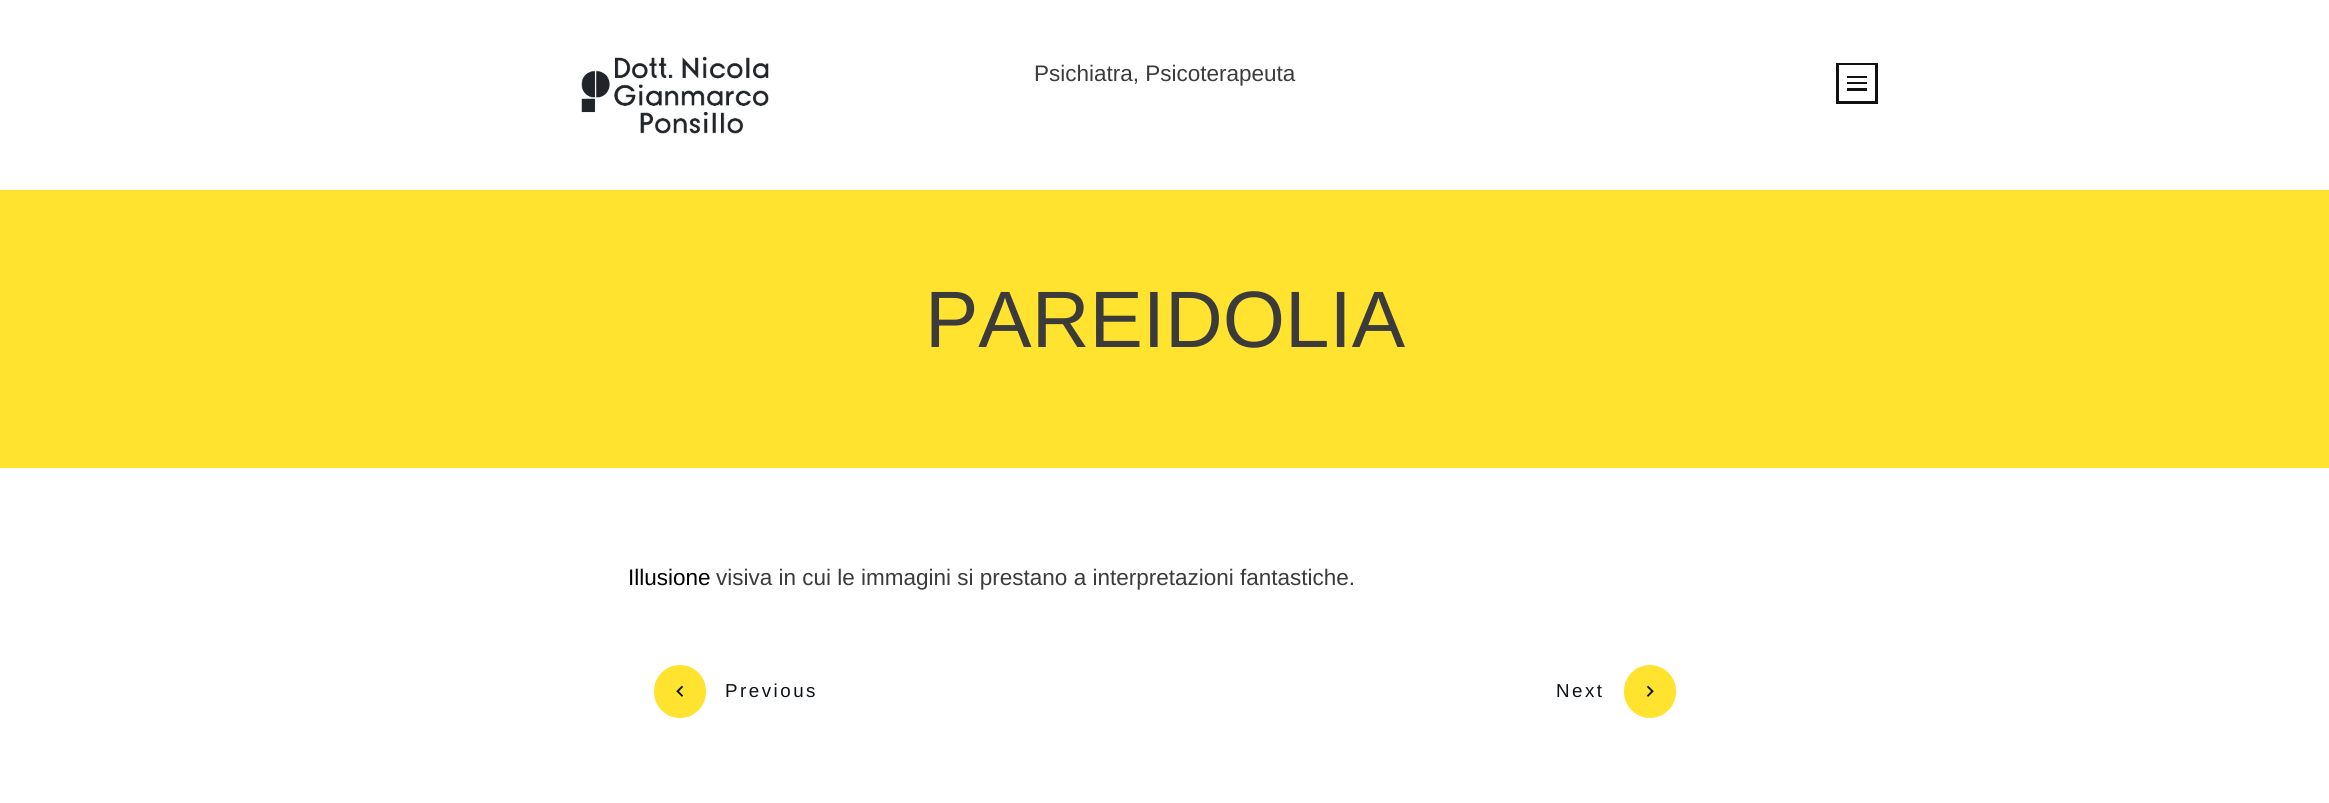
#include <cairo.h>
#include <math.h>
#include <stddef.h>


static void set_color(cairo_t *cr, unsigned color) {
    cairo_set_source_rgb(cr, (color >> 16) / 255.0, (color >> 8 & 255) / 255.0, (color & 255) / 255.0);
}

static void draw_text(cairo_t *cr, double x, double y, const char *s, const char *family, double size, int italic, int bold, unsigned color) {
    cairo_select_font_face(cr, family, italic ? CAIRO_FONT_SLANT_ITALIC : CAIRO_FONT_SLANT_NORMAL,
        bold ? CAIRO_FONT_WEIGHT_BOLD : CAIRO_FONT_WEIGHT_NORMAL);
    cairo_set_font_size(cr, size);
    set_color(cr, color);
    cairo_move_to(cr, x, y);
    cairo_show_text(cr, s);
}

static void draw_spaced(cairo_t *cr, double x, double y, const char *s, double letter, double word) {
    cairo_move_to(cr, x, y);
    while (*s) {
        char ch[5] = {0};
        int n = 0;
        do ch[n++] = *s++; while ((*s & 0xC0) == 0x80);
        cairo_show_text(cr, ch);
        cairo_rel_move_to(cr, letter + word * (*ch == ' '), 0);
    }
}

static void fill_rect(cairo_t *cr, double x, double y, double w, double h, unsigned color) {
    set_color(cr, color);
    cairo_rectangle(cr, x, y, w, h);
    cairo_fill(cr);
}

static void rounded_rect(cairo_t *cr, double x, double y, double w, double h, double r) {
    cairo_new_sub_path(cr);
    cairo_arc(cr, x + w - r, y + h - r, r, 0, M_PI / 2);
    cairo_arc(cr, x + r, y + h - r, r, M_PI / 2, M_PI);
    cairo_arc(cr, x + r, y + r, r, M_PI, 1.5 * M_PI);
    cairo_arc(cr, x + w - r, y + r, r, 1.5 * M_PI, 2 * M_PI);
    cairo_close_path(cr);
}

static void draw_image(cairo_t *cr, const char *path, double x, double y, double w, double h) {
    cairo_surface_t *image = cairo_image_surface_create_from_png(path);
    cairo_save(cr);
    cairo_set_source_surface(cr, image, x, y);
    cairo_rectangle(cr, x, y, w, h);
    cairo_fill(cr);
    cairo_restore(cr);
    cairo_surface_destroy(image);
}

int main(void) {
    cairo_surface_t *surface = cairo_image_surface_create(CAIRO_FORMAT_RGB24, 2329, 803);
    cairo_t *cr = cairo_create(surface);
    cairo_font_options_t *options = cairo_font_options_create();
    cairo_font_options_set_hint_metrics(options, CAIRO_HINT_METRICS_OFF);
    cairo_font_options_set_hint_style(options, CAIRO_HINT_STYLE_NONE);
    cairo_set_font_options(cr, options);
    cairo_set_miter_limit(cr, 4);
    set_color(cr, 0xFFFFFF);
    cairo_paint(cr);
    draw_image(cr, "assets/img1.png", 581, 56, 188, 78);
    draw_text(cr, 1034, 81, "Psichiatra, Psicoterapeuta", "Liberation Sans", 22.5, 0, 0, 0x3B3B3B);
    fill_rect(cr, 1847, 76, 20, 2, 0x111111);
    fill_rect(cr, 1847, 82, 20, 2, 0x111111);
    fill_rect(cr, 1847, 88, 20, 3, 0x111111);
    cairo_save(cr);
    cairo_rectangle(cr, 1836, 63, 42, 41);
    cairo_clip(cr);
    cairo_new_path(cr);
    cairo_move_to(cr, 1836, 62);
    cairo_line_to(cr, 1836, 104);
    cairo_line_to(cr, 1878, 104);
    cairo_line_to(cr, 1878, 62);
    cairo_close_path(cr);
    cairo_move_to(cr, 1875, 101);
    cairo_line_to(cr, 1839, 101);
    cairo_line_to(cr, 1839, 65);
    cairo_line_to(cr, 1875, 65);
    cairo_close_path(cr);
    cairo_fill(cr);
    cairo_restore(cr);
    fill_rect(cr, 0, 190, 2329, 278, 0xFFE32E);
    draw_text(cr, 925, 347, "PAREIDOLIA", "Liberation Sans", 80, 0, 0, 0x3B3B3B);
    draw_text(cr, 628, 585, "Illusione", "Liberation Sans", 22.5, 0, 0, 0x000000);
    draw_text(cr, 716, 585, "visiva in cui le immagini si prestano a interpretazioni fantastiche.", "Liberation Sans", 22.5, 0, 0, 0x3B3B3B);
    set_color(cr, 0xFFE32E);
    rounded_rect(cr, 654, 665, 52, 53, 26);
    cairo_fill(cr);
    draw_image(cr, "assets/img2.png", 676, 685, 8, 12);
    cairo_set_font_size(cr, 18.75);
    set_color(cr, 0x0C1115);
    draw_spaced(cr, 725, 697, "Previous", 2.5, 0);
    draw_spaced(cr, 1556, 697, "Next", 2.5, 0);
    set_color(cr, 0xFFE32E);
    rounded_rect(cr, 1624, 665, 52, 53, 26);
    cairo_fill(cr);
    draw_image(cr, "assets/img3.png", 1646, 685, 8, 12);
    cairo_surface_write_to_png(surface, "output.png");
    cairo_font_options_destroy(options);
    cairo_destroy(cr);
    cairo_surface_destroy(surface);
    return 0;
}
